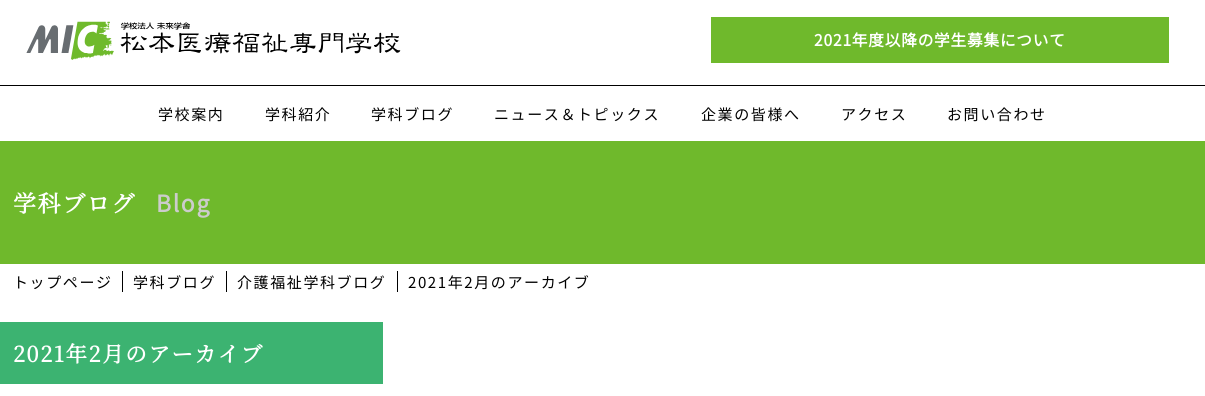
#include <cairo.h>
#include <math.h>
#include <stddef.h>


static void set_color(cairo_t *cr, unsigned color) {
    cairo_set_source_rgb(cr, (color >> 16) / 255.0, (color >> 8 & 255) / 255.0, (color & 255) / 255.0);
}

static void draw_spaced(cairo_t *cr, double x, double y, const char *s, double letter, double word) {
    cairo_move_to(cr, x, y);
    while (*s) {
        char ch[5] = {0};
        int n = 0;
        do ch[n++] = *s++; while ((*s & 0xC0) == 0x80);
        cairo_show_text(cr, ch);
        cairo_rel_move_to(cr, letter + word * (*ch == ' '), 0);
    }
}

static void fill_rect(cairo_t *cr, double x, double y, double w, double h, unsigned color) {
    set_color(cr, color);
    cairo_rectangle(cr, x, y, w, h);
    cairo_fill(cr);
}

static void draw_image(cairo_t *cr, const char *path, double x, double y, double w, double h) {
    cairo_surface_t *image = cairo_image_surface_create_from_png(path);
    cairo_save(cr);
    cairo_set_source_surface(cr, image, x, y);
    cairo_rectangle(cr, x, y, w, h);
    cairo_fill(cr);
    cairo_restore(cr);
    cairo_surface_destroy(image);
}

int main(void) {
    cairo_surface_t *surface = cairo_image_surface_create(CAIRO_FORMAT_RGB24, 1205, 396);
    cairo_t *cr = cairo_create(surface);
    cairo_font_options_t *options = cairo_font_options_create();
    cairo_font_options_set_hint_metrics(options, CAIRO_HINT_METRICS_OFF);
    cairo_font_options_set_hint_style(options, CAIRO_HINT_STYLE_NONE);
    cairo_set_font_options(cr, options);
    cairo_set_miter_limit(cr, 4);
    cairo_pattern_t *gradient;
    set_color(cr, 0xFFFFFF);
    cairo_paint(cr);
    fill_rect(cr, 0, 85, 1205, 1, 0x000000);
    draw_image(cr, "assets/img1.png", 26, 21, 375, 39);
    fill_rect(cr, 711, 17, 458, 46, 0x6FB92C);
    cairo_select_font_face(cr, "Noto Sans JP", CAIRO_FONT_SLANT_NORMAL, CAIRO_FONT_WEIGHT_BOLD);
    cairo_set_font_size(cr, 15.7);
    set_color(cr, 0xFFFFFF);
    draw_spaced(cr, 814, 46, "2021年度以降の学生募集について", 0.75, 0);
    cairo_select_font_face(cr, "Noto Sans JP", CAIRO_FONT_SLANT_NORMAL, CAIRO_FONT_WEIGHT_NORMAL);
    cairo_set_font_size(cr, 15);
    set_color(cr, 0x000000);
    draw_spaced(cr, 158, 120, "学校案内", 1.6, 0);
    draw_spaced(cr, 265, 120, "学科紹介", 1.6, 0);
    draw_spaced(cr, 371, 120, "学科ブログ", 1.6, 0);
    draw_spaced(cr, 494, 120, "ニュース＆トピックス", 1.6, 0);
    draw_spaced(cr, 701, 120, "企業の皆様へ", 1.6, 0);
    draw_spaced(cr, 841, 120, "アクセス", 1.6, 0);
    draw_spaced(cr, 947, 120, "お問い合わせ", 1.6, 0);
    fill_rect(cr, 0, 141, 1205, 123, 0x6FB92C);
    cairo_select_font_face(cr, "Noto Serif JP", CAIRO_FONT_SLANT_NORMAL, CAIRO_FONT_WEIGHT_BOLD);
    cairo_set_font_size(cr, 23);
    set_color(cr, 0xFFFFFF);
    draw_spaced(cr, 13, 212, "学科ブログ", 1.6, 0);
    cairo_select_font_face(cr, "Noto Sans JP", CAIRO_FONT_SLANT_NORMAL, CAIRO_FONT_WEIGHT_BOLD);
    set_color(cr, 0xCCCCCC);
    draw_spaced(cr, 156, 212, "Blog", 1.6, 0);
    cairo_select_font_face(cr, "Noto Sans JP", CAIRO_FONT_SLANT_NORMAL, CAIRO_FONT_WEIGHT_NORMAL);
    cairo_set_font_size(cr, 15);
    set_color(cr, 0x000000);
    draw_spaced(cr, 13, 288, "トップページ", 1.6, 0);
    fill_rect(cr, 122, 271, 1, 21, 0x000000);
    draw_spaced(cr, 133, 288, "学科ブログ", 1.6, 0);
    fill_rect(cr, 226, 271, 1, 21, 0x000000);
    draw_spaced(cr, 237, 288, "介護福祉学科ブログ", 1.6, 0);
    fill_rect(cr, 397, 271, 1, 21, 0x000000);
    draw_spaced(cr, 408, 288, "2021年2月のアーカイブ", 1.6, 0);
    gradient = cairo_pattern_create_linear(0, 353, 1205, 353);
    cairo_pattern_add_color_stop_rgba(gradient, 0, 0.235, 0.702, 0.443, 1);
    cairo_pattern_add_color_stop_rgba(gradient, 0.3, 0.235, 0.702, 0.443, 1);
    cairo_pattern_add_color_stop_rgba(gradient, 0.3, 1, 1, 1, 1);
    cairo_pattern_add_color_stop_rgba(gradient, 1, 1, 1, 1, 1);
    cairo_set_source(cr, gradient);
    cairo_pattern_destroy(gradient);
    cairo_rectangle(cr, 0, 322, 362, 62);
    cairo_fill(cr);
    fill_rect(cr, 362, 322, 21, 62, 0x3CB371);
    cairo_select_font_face(cr, "Noto Serif JP", CAIRO_FONT_SLANT_NORMAL, CAIRO_FONT_WEIGHT_BOLD);
    cairo_set_font_size(cr, 21.5);
    set_color(cr, 0xFFFFFF);
    draw_spaced(cr, 13, 362, "2021年2月のアーカイブ", 1.6, 0);
    cairo_surface_write_to_png(surface, "output.png");
    cairo_font_options_destroy(options);
    cairo_destroy(cr);
    cairo_surface_destroy(surface);
    return 0;
}
